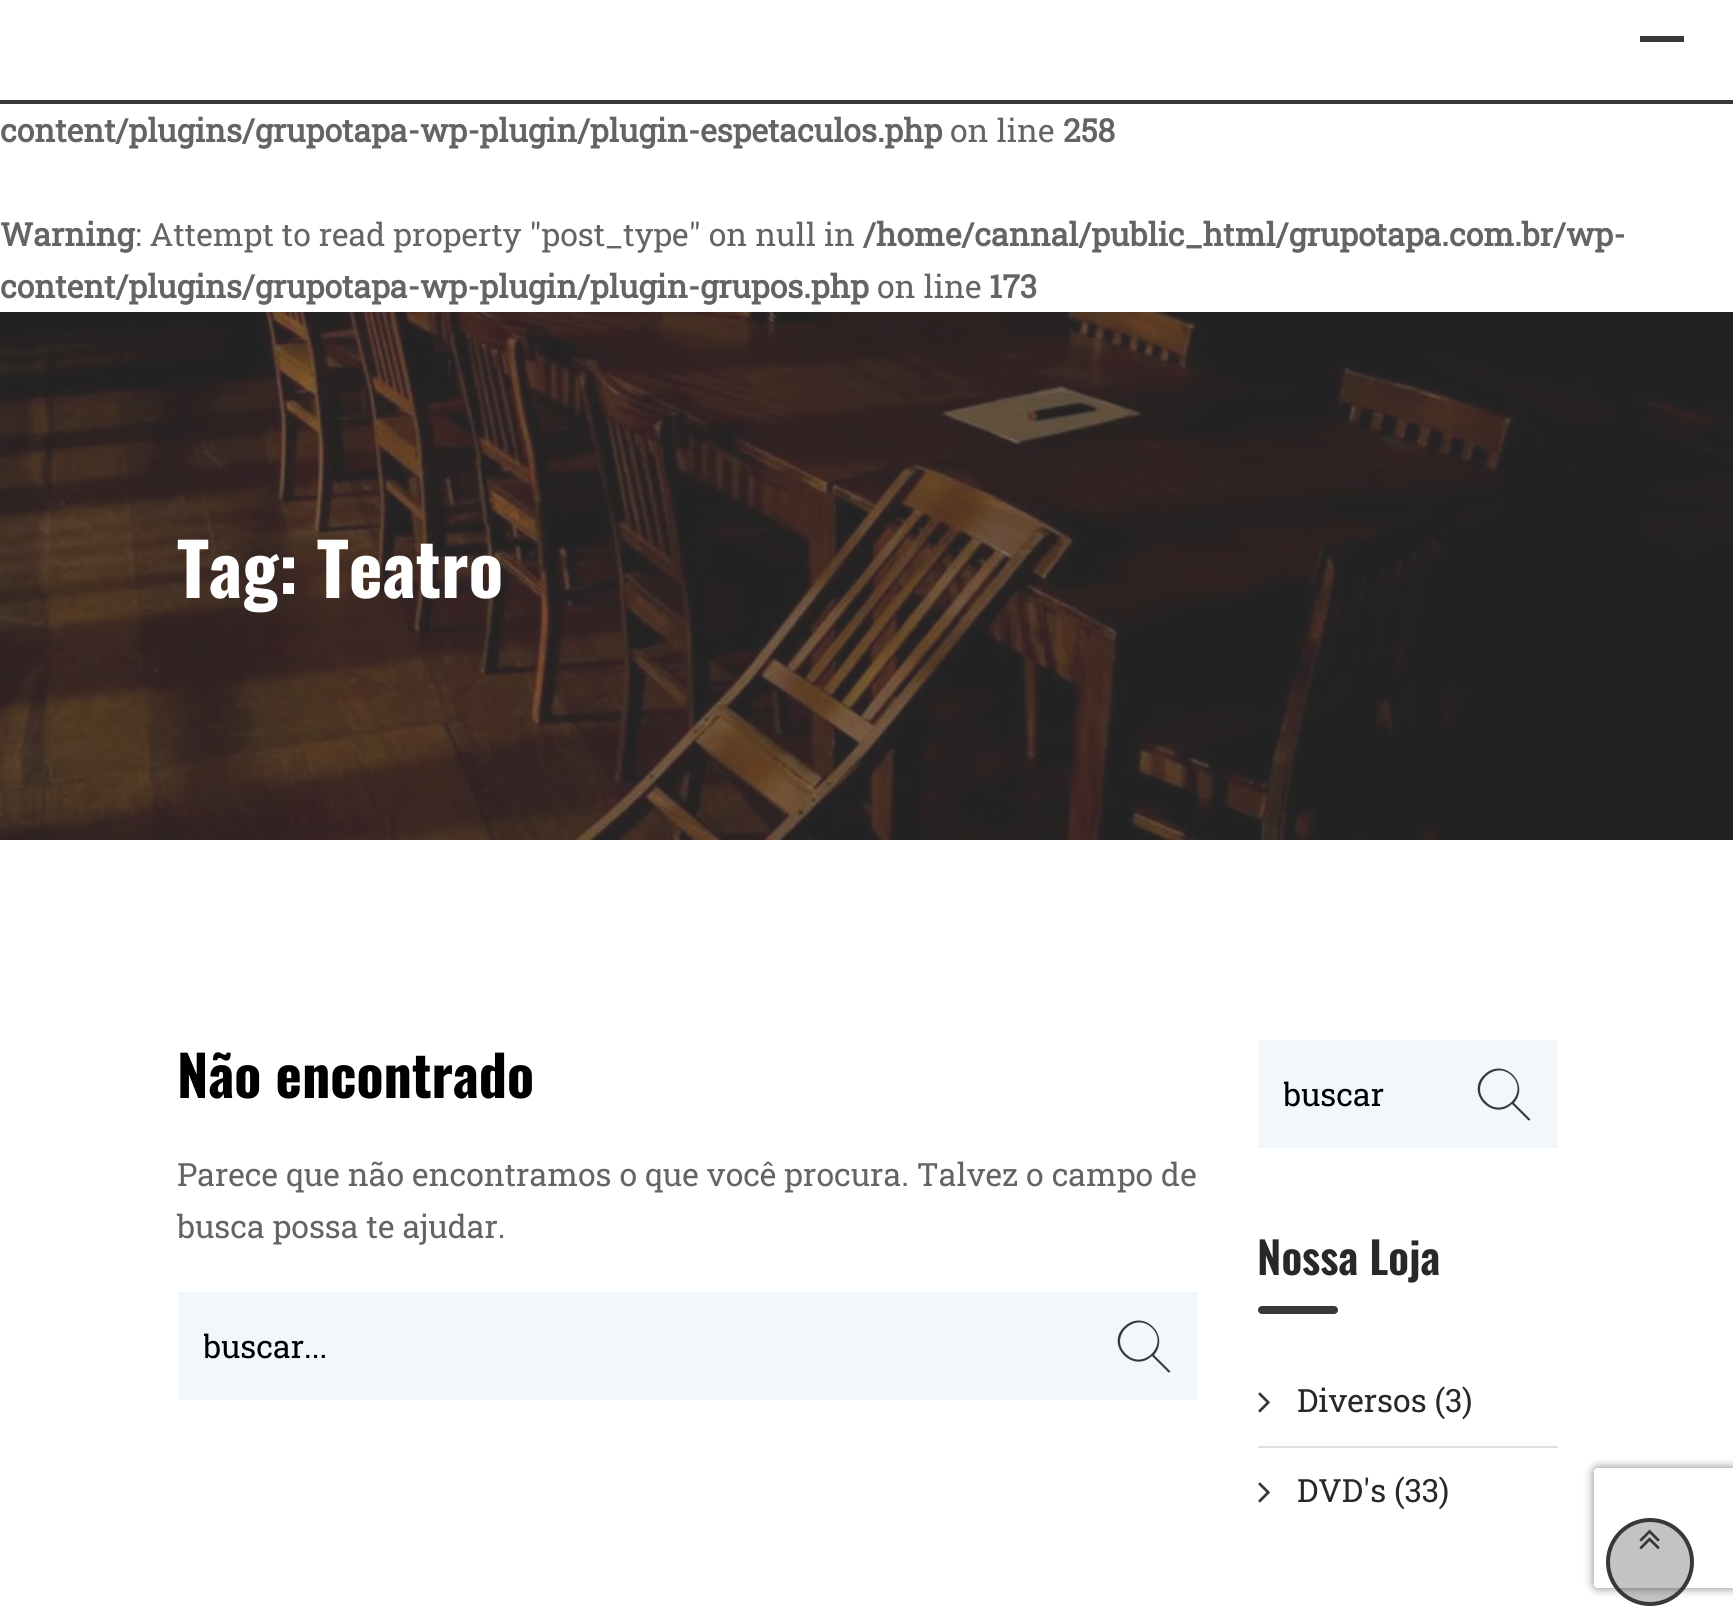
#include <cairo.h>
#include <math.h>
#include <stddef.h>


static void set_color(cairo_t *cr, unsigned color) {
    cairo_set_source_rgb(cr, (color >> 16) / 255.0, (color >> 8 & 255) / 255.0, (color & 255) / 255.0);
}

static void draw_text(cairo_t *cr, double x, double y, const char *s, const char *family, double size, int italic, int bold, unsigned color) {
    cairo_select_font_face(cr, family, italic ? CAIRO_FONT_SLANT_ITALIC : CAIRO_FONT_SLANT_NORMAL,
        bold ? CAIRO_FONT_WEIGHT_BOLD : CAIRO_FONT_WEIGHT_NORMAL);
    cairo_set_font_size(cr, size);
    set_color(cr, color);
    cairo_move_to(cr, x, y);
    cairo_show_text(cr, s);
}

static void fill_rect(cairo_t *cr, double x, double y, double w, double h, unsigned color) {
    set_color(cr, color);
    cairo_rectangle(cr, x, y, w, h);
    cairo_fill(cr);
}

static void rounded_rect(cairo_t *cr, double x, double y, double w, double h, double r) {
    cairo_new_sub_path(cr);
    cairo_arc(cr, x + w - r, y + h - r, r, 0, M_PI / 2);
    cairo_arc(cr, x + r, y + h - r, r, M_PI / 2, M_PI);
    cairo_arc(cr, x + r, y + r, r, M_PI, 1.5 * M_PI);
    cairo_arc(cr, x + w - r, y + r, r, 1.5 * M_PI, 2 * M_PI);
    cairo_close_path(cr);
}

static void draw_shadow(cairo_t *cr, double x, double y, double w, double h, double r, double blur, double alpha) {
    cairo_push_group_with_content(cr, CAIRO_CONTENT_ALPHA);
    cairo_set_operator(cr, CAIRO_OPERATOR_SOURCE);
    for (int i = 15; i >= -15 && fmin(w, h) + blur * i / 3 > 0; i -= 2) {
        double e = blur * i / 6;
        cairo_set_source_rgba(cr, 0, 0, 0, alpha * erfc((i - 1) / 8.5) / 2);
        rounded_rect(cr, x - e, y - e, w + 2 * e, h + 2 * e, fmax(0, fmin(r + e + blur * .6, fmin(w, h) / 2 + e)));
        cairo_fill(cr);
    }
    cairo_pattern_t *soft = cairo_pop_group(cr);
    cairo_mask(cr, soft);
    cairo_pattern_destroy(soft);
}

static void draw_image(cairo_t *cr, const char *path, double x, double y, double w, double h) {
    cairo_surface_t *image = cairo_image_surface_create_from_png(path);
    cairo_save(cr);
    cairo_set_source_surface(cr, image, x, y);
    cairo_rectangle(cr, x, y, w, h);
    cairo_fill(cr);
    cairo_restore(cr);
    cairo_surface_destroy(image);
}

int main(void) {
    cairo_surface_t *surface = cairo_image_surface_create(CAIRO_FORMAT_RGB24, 1733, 1615);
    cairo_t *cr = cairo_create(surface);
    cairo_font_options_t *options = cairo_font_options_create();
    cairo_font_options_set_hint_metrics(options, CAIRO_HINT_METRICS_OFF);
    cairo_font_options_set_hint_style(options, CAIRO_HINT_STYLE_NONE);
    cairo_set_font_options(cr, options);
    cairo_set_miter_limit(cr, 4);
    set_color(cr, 0xFFFFFF);
    cairo_paint(cr);
    draw_text(cr, 0, 142, "content/plugins/grupotapa-wp-plugin/plugin-espetaculos.php", "Roboto Slab", 32, 0, 1, 0x646464);
    draw_text(cr, 950, 142, "on line", "Roboto Slab", 32, 0, 0, 0x646464);
    draw_text(cr, 1063, 142, "258", "Roboto Slab", 32, 0, 1, 0x646464);
    draw_text(cr, 0, 246, "Warning", "Roboto Slab", 32, 0, 1, 0x646464);
    draw_text(cr, 135, 246, ": Attempt to read property \"post_type\" on null in", "Roboto Slab", 32, 0, 0, 0x646464);
    draw_text(cr, 863, 246, "/home/cannal/public_html/grupotapa.com.br/wp-", "Roboto Slab", 32, 0, 1, 0x646464);
    draw_text(cr, 0, 298, "content/plugins/grupotapa-wp-plugin/plugin-grupos.php", "Roboto Slab", 32, 0, 1, 0x646464);
    draw_text(cr, 877, 298, "on line", "Roboto Slab", 32, 0, 0, 0x646464);
    draw_text(cr, 989, 298, "173", "Roboto Slab", 32, 0, 1, 0x646464);
    fill_rect(cr, 0, 100, 1733, 4, 0x383838);
    fill_rect(cr, 1640, 36, 44, 6, 0x383838);
    draw_image(cr, "assets/img1.png", 0, 312, 1733, 528);
    draw_text(cr, 177, 598, "Tag: Teatro", "Oswald", 72, 0, 1, 0xFFFFFF);
    draw_text(cr, 177, 1098, "Não encontrado", "Oswald", 56, 0, 1, 0x000000);
    draw_text(cr, 177, 1186, "Parece que não encontramos o que você procura. Talvez o campo de", "Roboto Slab", 32, 0, 0, 0x646464);
    draw_text(cr, 177, 1238, "busca possa te ajudar.", "Roboto Slab", 32, 0, 0, 0x646464);
    fill_rect(cr, 178, 1292, 1020, 108, 0xF1F7FA);
    cairo_save(cr);
    cairo_rectangle(cr, 204, 1324, 824, 42);
    cairo_clip(cr);
    draw_text(cr, 203, 1358, "buscar...", "Roboto Slab", 32, 0, 0, 0x000000);
    cairo_restore(cr);
    set_color(cr, 0x383838);
    cairo_new_path(cr);
    cairo_move_to(cr, 1170, 1371);
    cairo_curve_to(cr, 1171, 1372, 1169, 1373, 1168, 1372);
    cairo_line_to(cr, 1152, 1356);
    cairo_curve_to(cr, 1133, 1374, 1105, 1345, 1124, 1327);
    cairo_curve_to(cr, 1143, 1308, 1171, 1335, 1154, 1355);
    cairo_close_path(cr);
    cairo_move_to(cr, 1126, 1354);
    cairo_curve_to(cr, 1143, 1371, 1169, 1345, 1152, 1328);
    cairo_curve_to(cr, 1135, 1311, 1108, 1337, 1126, 1354);
    cairo_close_path(cr);
    cairo_fill(cr);
    fill_rect(cr, 1258, 1040, 300, 108, 0xF1F7FA);
    cairo_save(cr);
    cairo_rectangle(cr, 1284, 1072, 104, 42);
    cairo_clip(cr);
    draw_text(cr, 1283, 1106, "buscar", "Roboto Slab", 32, 0, 0, 0x000000);
    cairo_restore(cr);
    set_color(cr, 0x383838);
    cairo_new_path(cr);
    cairo_move_to(cr, 1530, 1119);
    cairo_curve_to(cr, 1531, 1120, 1529, 1121, 1528, 1120);
    cairo_line_to(cr, 1512, 1104);
    cairo_curve_to(cr, 1493, 1122, 1465, 1093, 1484, 1075);
    cairo_curve_to(cr, 1503, 1056, 1531, 1083, 1514, 1103);
    cairo_close_path(cr);
    cairo_move_to(cr, 1486, 1102);
    cairo_curve_to(cr, 1503, 1119, 1529, 1093, 1512, 1076);
    cairo_curve_to(cr, 1495, 1059, 1468, 1085, 1486, 1102);
    cairo_close_path(cr);
    cairo_fill(cr);
    draw_text(cr, 1257, 1275, "Nossa Loja", "Oswald SemiBold", 44, 0, 0, 0x282828);
    set_color(cr, 0x383838);
    rounded_rect(cr, 1258, 1306, 80, 8, 4);
    cairo_fill(cr);
    fill_rect(cr, 1258, 1446, 300, 2, 0xE0E0E0);
    draw_image(cr, "assets/img2.png", 1258, 1392, 12, 21);
    draw_text(cr, 1297, 1412, "Diversos (3)", "Roboto Slab", 32, 0, 0, 0x282828);
    draw_image(cr, "assets/img2.png", 1258, 1482, 12, 21);
    draw_text(cr, 1297, 1502, "DVD's (33)", "Roboto Slab", 32, 0, 0, 0x282828);
    cairo_save(cr);
    cairo_set_fill_rule(cr, CAIRO_FILL_RULE_EVEN_ODD);
    cairo_new_path(cr);
    cairo_move_to(cr, 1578, 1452);
    cairo_line_to(cr, 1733, 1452);
    cairo_line_to(cr, 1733, 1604);
    cairo_line_to(cr, 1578, 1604);
    cairo_close_path(cr);
    cairo_move_to(cr, 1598, 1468);
    cairo_line_to(cr, 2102, 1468);
    cairo_curve_to(cr, 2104, 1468, 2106, 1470, 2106, 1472);
    cairo_line_to(cr, 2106, 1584);
    cairo_curve_to(cr, 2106, 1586, 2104, 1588, 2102, 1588);
    cairo_line_to(cr, 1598, 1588);
    cairo_curve_to(cr, 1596, 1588, 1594, 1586, 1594, 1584);
    cairo_line_to(cr, 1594, 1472);
    cairo_curve_to(cr, 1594, 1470, 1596, 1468, 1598, 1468);
    cairo_close_path(cr);
    cairo_clip(cr);
    set_color(cr, 0x808080);
    draw_shadow(cr, 1594, 1468, 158, 120, 4, 5, 1);
    cairo_restore(cr);
    cairo_set_source_rgba(cr, 0.22, 0.22, 0.22, 0.3);
    cairo_arc(cr, 1650, 1562, 42, 0, 2 * M_PI);
    cairo_fill_preserve(cr);
    set_color(cr, 0x383838);
    cairo_set_line_width(cr, 4);
    cairo_stroke(cr);
    draw_image(cr, "assets/img3.png", 1639, 1529, 21, 21);
    cairo_surface_write_to_png(surface, "output.png");
    cairo_font_options_destroy(options);
    cairo_destroy(cr);
    cairo_surface_destroy(surface);
    return 0;
}
